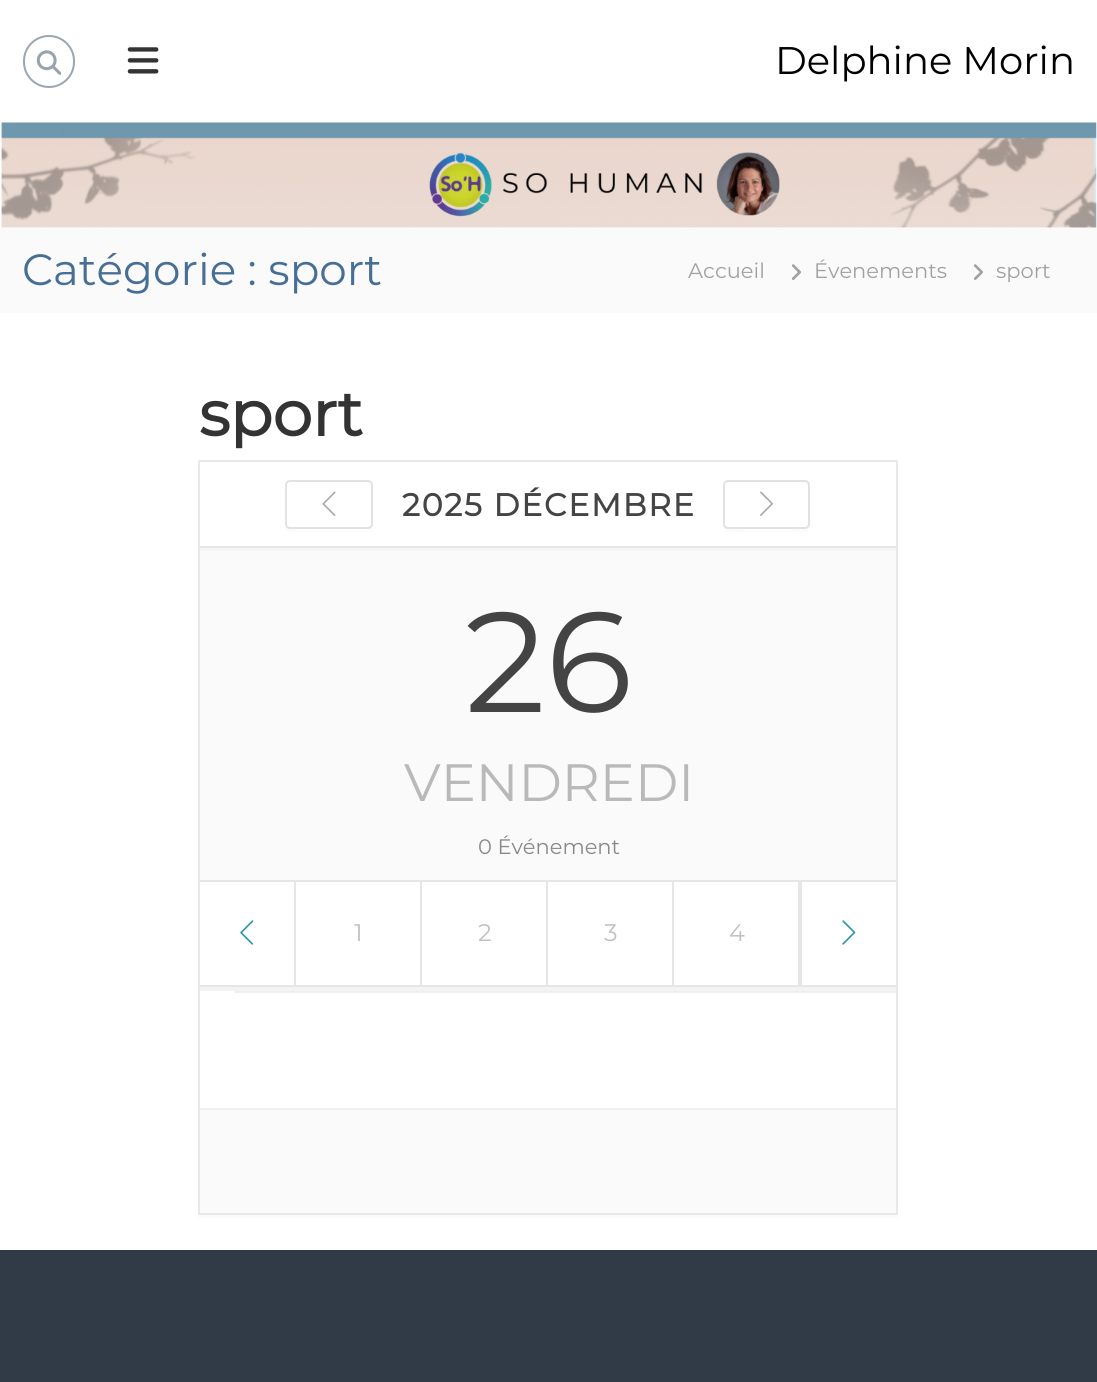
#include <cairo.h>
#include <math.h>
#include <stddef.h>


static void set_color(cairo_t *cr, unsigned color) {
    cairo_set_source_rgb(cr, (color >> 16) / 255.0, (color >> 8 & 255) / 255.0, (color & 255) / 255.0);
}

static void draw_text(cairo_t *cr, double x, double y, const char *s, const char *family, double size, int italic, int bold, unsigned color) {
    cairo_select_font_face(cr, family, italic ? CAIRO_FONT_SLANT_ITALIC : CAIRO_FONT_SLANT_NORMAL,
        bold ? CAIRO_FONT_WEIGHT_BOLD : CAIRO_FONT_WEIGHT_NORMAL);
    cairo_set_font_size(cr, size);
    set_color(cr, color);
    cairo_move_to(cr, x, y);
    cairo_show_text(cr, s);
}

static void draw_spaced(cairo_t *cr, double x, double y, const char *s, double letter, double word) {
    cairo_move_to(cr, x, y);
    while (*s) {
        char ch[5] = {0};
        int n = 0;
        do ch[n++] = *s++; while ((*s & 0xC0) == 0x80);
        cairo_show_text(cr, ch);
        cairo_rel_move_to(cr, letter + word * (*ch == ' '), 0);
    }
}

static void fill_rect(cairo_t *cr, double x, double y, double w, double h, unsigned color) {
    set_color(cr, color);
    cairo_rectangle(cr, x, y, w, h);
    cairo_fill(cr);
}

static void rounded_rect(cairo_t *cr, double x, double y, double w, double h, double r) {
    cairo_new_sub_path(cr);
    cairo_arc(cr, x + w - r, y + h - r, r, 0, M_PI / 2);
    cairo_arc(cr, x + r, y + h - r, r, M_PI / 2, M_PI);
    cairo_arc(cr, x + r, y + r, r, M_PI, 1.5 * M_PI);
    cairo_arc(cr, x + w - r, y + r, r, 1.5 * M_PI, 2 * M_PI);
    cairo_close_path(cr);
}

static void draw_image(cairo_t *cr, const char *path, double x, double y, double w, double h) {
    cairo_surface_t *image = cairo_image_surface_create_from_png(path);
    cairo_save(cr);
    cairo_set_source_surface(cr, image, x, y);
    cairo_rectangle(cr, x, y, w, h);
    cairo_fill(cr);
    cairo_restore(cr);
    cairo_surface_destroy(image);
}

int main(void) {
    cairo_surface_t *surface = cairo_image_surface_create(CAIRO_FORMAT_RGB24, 1097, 1382);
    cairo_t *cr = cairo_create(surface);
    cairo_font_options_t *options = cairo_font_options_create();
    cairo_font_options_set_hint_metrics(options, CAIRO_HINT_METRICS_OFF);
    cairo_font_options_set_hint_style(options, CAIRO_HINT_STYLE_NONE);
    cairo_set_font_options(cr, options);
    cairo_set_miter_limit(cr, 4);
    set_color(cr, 0xFFFFFF);
    cairo_paint(cr);
    rounded_rect(cr, 24, 36, 50, 51, 25);
    set_color(cr, 0x9CA6B2);
    cairo_stroke(cr);
    draw_image(cr, "assets/img1.png", 36, 50, 26, 25);
    draw_image(cr, "assets/img2.png", 127, 47, 32, 27);
    draw_text(cr, 775, 74, "Delphine Morin", "Montserrat", 38.5, 0, 0, 0x000000);
    draw_image(cr, "assets/img3.png", 1, 122, 1096, 106);
    fill_rect(cr, 0, 228, 1097, 85, 0xFAFAFA);
    draw_text(cr, 22, 285, "Catégorie : sport", "Montserrat", 43.75, 0, 0, 0x466E96);
    draw_text(cr, 688, 278, "Accueil", "Montserrat", 21, 0, 0, 0xA1A1A1);
    draw_image(cr, "assets/img4.png", 791, 264, 10, 16);
    draw_text(cr, 814, 278, "Évenements", "Montserrat", 21, 0, 0, 0xA1A1A1);
    draw_image(cr, "assets/img4.png", 973, 264, 10, 16);
    draw_text(cr, 996, 278, "sport", "Montserrat", 21, 0, 0, 0xA1A1A1);
    draw_text(cr, 199, 436, "sport", "Montserrat", 63, 0, 1, 0x333333);
    set_color(cr, 0xFBFBFB);
    cairo_new_path(cr);
    cairo_move_to(cr, 198, 1214);
    cairo_line_to(cr, 198, 1218);
    cairo_line_to(cr, 898, 1218);
    cairo_line_to(cr, 898, 464);
    cairo_line_to(cr, 898, 1214);
    cairo_close_path(cr);
    cairo_fill(cr);
    cairo_rectangle(cr, 199, 461, 698, 753);
    set_color(cr, 0xE8E8E8);
    cairo_stroke(cr);
    fill_rect(cr, 200, 548, 696, 3, 0xF4F4F4);
    set_color(cr, 0xFBFBFB);
    cairo_new_path(cr);
    cairo_move_to(cr, 285, 486);
    cairo_line_to(cr, 285, 514);
    cairo_curve_to(cr, 285, 534, 283, 532, 303, 532);
    cairo_line_to(cr, 355, 532);
    cairo_curve_to(cr, 375, 532, 373, 534, 373, 514);
    cairo_line_to(cr, 373, 486);
    cairo_line_to(cr, 373, 523);
    cairo_curve_to(cr, 373, 526, 370, 528, 368, 528);
    cairo_line_to(cr, 290, 528);
    cairo_curve_to(cr, 288, 528, 285, 526, 285, 523);
    cairo_close_path(cr);
    cairo_fill(cr);
    set_color(cr, 0xFFFFFF);
    rounded_rect(cr, 286, 481, 86, 47, 4);
    cairo_fill_preserve(cr);
    set_color(cr, 0xE2E2E2);
    cairo_stroke(cr);
    draw_image(cr, "assets/img5.png", 322, 491, 14, 25);
    fill_rect(cr, 200, 546, 696, 2, 0xE6E6E6);
    cairo_set_font_size(cr, 31.5);
    set_color(cr, 0x444444);
    draw_spaced(cr, 402, 516, "2025 DÉCEMBRE", 1.75, 0);
    set_color(cr, 0xFBFBFB);
    cairo_new_path(cr);
    cairo_move_to(cr, 723, 525);
    cairo_curve_to(cr, 723, 535, 732, 532, 741, 532);
    cairo_line_to(cr, 792, 532);
    cairo_curve_to(cr, 801, 532, 810, 535, 810, 525);
    cairo_curve_to(cr, 809, 527, 807, 528, 805, 528);
    cairo_line_to(cr, 728, 528);
    cairo_curve_to(cr, 726, 528, 724, 527, 723, 525);
    cairo_close_path(cr);
    cairo_fill(cr);
    set_color(cr, 0xFFFFFF);
    rounded_rect(cr, 724, 481, 85, 47, 4);
    cairo_fill_preserve(cr);
    set_color(cr, 0xE2E2E2);
    cairo_stroke(cr);
    draw_image(cr, "assets/img6.png", 760, 491, 13, 25);
    fill_rect(cr, 200, 551, 696, 329, 0xFAFAFA);
    draw_text(cr, 465, 712, "26", "Montserrat", 142, 0, 0, 0x444444);
    draw_text(cr, 404, 801, "VENDREDI", "Montserrat", 52.5, 0, 0, 0xB9B9B9);
    draw_text(cr, 478, 854, "0 Événement", "Montserrat", 21, 0, 0, 0x888888);
    fill_rect(cr, 200, 880, 696, 2, 0xE6E6E6);
    fill_rect(cr, 200, 987, 696, 4, 0xF3F3F3);
    fill_rect(cr, 294, 882, 2, 105, 0xE6E6E6);
    fill_rect(cr, 200, 985, 96, 2, 0xE6E6E6);
    draw_image(cr, "assets/img7.png", 240, 920, 14, 25);
    fill_rect(cr, 420, 882, 2, 105, 0xE6E6E6);
    fill_rect(cr, 296, 985, 126, 2, 0xE6E6E6);
    draw_text(cr, 354, 941, "1", "Montserrat", 24, 0, 0, 0xC1C1C1);
    fill_rect(cr, 546, 882, 2, 105, 0xE6E6E6);
    fill_rect(cr, 422, 985, 126, 2, 0xE6E6E6);
    draw_text(cr, 478, 941, "2", "Montserrat", 24, 0, 0, 0xC1C1C1);
    fill_rect(cr, 672, 882, 2, 105, 0xE6E6E6);
    fill_rect(cr, 800, 985, 96, 2, 0xE6E6E6);
    fill_rect(cr, 798, 882, 4, 105, 0xE6E6E6);
    fill_rect(cr, 548, 985, 252, 2, 0xE6E6E6);
    draw_text(cr, 604, 941, "3", "Montserrat", 24, 0, 0, 0xC1C1C1);
    draw_text(cr, 729, 941, "4", "Montserrat", 24, 0, 0, 0xC1C1C1);
    draw_image(cr, "assets/img8.png", 842, 920, 14, 25);
    fill_rect(cr, 235, 991, 661, 2, 0xEFEFEF);
    fill_rect(cr, 200, 1110, 696, 103, 0xFAFAFA);
    fill_rect(cr, 200, 1108, 696, 2, 0xEFEFEF);
    fill_rect(cr, 0, 1250, 1097, 132, 0x313B48);
    cairo_surface_write_to_png(surface, "output.png");
    cairo_font_options_destroy(options);
    cairo_destroy(cr);
    cairo_surface_destroy(surface);
    return 0;
}
